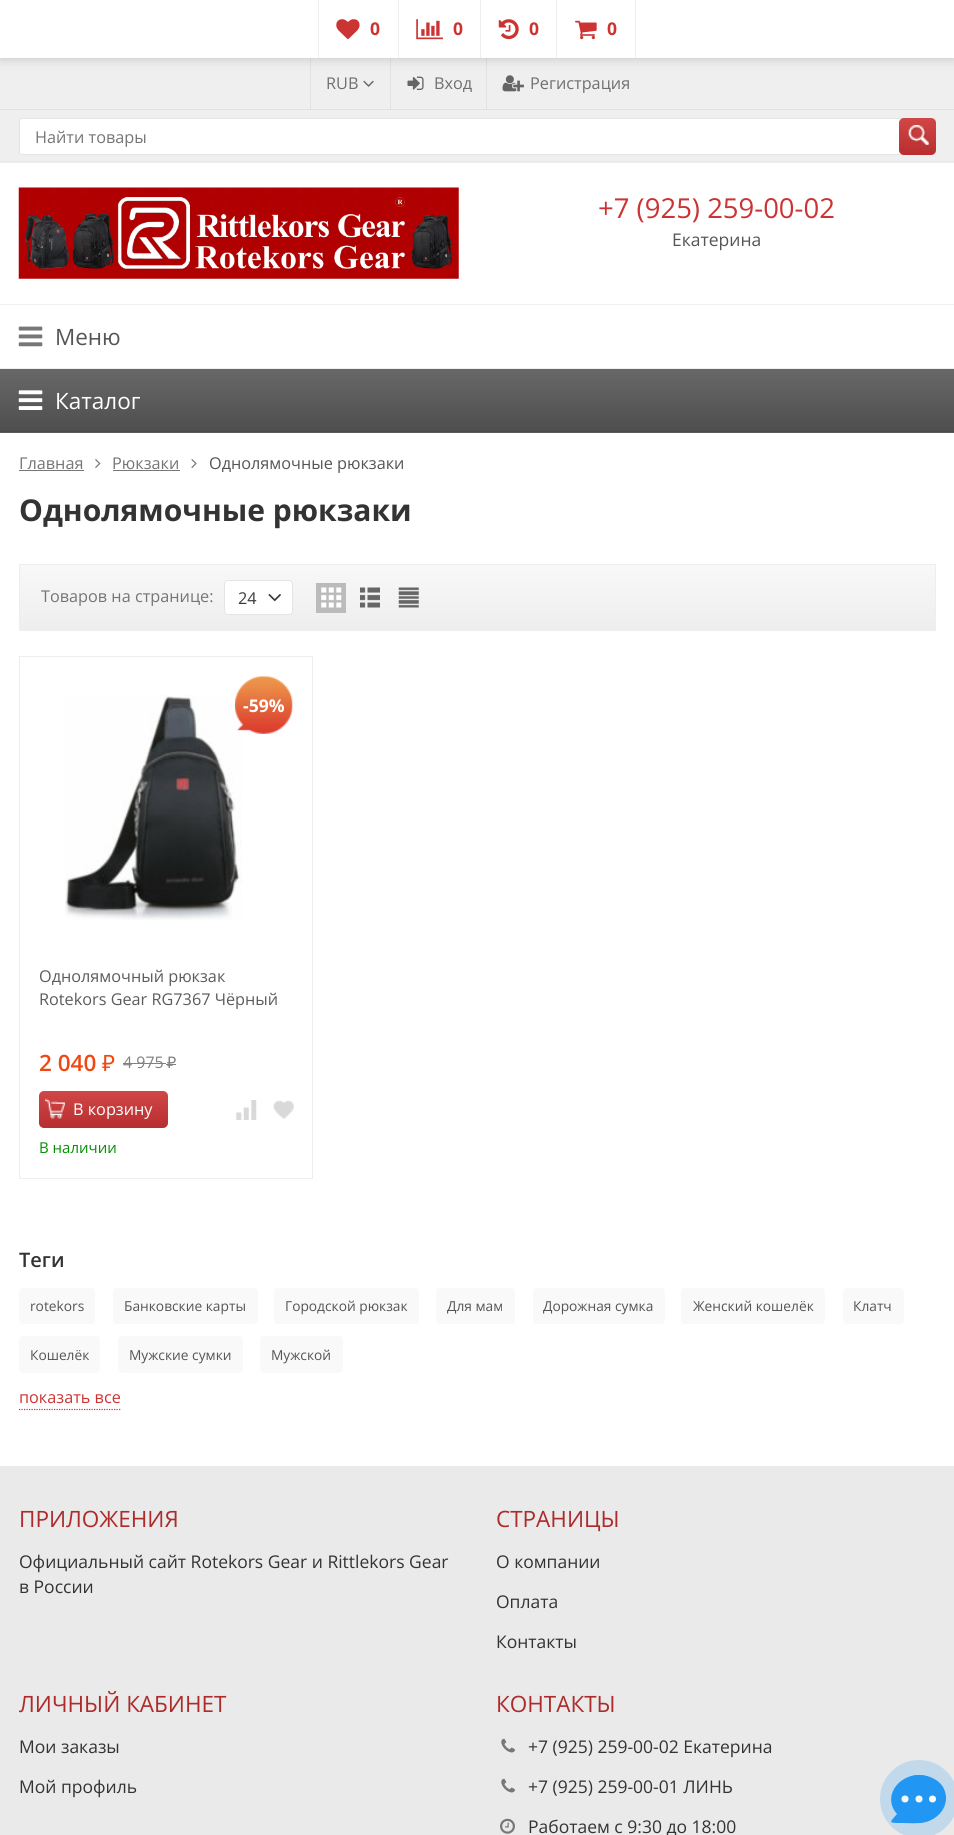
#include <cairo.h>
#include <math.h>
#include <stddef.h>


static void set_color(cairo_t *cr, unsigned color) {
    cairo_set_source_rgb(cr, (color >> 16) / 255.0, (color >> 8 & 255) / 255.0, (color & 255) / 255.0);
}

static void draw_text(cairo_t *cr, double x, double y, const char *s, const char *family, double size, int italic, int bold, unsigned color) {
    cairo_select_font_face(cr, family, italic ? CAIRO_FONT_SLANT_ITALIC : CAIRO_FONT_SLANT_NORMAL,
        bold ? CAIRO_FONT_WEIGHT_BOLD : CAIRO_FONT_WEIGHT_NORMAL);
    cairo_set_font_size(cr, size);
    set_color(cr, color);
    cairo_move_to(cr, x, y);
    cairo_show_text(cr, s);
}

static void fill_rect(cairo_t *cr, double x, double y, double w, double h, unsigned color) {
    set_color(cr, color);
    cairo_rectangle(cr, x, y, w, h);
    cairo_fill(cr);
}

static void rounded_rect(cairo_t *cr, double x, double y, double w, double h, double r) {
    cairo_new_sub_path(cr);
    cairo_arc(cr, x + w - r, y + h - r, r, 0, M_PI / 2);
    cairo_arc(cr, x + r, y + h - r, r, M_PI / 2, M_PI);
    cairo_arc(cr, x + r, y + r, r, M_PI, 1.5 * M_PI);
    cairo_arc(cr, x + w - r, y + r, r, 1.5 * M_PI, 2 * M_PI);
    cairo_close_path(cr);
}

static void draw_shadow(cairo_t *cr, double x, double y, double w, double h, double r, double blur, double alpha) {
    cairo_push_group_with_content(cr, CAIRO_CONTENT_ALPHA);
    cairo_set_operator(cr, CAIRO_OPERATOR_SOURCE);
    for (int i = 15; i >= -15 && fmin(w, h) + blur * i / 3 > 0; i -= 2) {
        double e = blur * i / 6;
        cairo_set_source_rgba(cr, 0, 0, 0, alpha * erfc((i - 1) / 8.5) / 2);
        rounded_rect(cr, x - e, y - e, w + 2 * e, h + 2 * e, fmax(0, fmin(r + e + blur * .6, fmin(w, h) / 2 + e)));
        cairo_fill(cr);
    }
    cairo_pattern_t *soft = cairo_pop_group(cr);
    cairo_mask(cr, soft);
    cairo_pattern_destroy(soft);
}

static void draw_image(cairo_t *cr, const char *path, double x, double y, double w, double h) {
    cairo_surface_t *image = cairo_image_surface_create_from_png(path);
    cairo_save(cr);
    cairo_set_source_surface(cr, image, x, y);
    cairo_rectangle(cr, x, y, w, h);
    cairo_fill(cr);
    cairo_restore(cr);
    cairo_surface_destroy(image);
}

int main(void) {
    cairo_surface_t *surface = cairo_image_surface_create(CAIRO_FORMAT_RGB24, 954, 1835);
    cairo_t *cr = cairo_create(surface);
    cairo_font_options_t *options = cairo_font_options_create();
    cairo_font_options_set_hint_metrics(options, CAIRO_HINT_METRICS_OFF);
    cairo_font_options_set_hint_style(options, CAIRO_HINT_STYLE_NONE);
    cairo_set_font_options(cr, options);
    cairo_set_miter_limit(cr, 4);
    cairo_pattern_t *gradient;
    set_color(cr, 0xFFFFFF);
    cairo_paint(cr);
    fill_rect(cr, 0, 58, 954, 105, 0xF0EFF0);
    fill_rect(cr, 310, 58, 1, 51, 0xE2E1E2);
    fill_rect(cr, 390, 58, 1, 51, 0xE2E1E2);
    draw_image(cr, "assets/img6.png", 407, 76, 17, 14);
    fill_rect(cr, 486, 58, 1, 51, 0xE2E1E2);
    draw_image(cr, "assets/img7.png", 502, 75, 22, 17);
    set_color(cr, 0x000000);
    draw_shadow(cr, 0, 0, 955, 58, 0, 6, 0.2);
    fill_rect(cr, 0, 0, 954, 58, 0xFFFFFF);
    fill_rect(cr, 318, 0, 1, 58, 0xEEEEEE);
    draw_image(cr, "assets/img1.png", 336, 19, 24, 21);
    draw_text(cr, 370, 35, "0", "Open Sans", 17.5, 0, 1, 0xCC3333);
    fill_rect(cr, 398, 0, 1, 58, 0xEEEEEE);
    draw_image(cr, "assets/img2.png", 416, 19, 27, 21);
    draw_text(cr, 453, 35, "0", "Open Sans", 17.5, 0, 1, 0xCC3333);
    fill_rect(cr, 480, 0, 1, 58, 0xEEEEEE);
    draw_image(cr, "assets/img3.png", 498, 19, 21, 21);
    draw_text(cr, 529, 35, "0", "Open Sans", 17.5, 0, 1, 0xCC3333);
    fill_rect(cr, 635, 0, 1, 58, 0xEEEEEE);
    fill_rect(cr, 556, 0, 1, 58, 0xEEEEEE);
    draw_image(cr, "assets/img4.png", 575, 20, 22, 20);
    draw_text(cr, 607, 35, "0", "Open Sans", 17.5, 0, 1, 0xCC3333);
    set_color(cr, 0xE6E8EA);
    rounded_rect(cr, 0, 161, 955, 1, 0.5);
    cairo_fill(cr);
    draw_text(cr, 326, 89, "RUB", "Open Sans", 16.25, 0, 0, 0x6F6F6F);
    draw_image(cr, "assets/img5.png", 363, 80, 11, 7);
    draw_text(cr, 434, 89, "Вход", "Open Sans", 16.25, 0, 0, 0x6F6F6F);
    draw_text(cr, 530, 89, "Регистрация", "Open Sans", 16.25, 0, 0, 0x6F6F6F);
    fill_rect(cr, 0, 109, 954, 1, 0xE2E1E2);
    set_color(cr, 0xFFFFFF);
    rounded_rect(cr, 19.5, 118.5, 916, 36, 2);
    cairo_fill_preserve(cr);
    set_color(cr, 0xE4E4E4);
    cairo_set_line_width(cr, 1);
    cairo_stroke(cr);
    draw_text(cr, 35, 143, "Найти товары", "Open Sans", 16.25, 0, 0, 0x757575);
    gradient = cairo_pattern_create_linear(918, 118, 918, 155);
    cairo_pattern_add_color_stop_rgba(gradient, 0, 0.82, 0.278, 0.278, 1);
    cairo_pattern_add_color_stop_rgba(gradient, 1, 0.722, 0.18, 0.18, 1);
    cairo_set_source(cr, gradient);
    cairo_pattern_destroy(gradient);
    rounded_rect(cr, 899, 118, 37, 37, 5);
    cairo_fill(cr);
    draw_image(cr, "assets/img8.png", 908, 125, 21, 20);
    draw_image(cr, "assets/img9.png", 18, 187, 441, 92);
    draw_text(cr, 598, 218, "+7 (925) 259-00-02", "Open Sans", 27.5, 0, 0, 0xCC3333);
    draw_text(cr, 672, 246, "Екатерина", "Open Sans", 17.5, 0, 0, 0x555555);
    fill_rect(cr, 0, 304, 954, 1, 0xEEEFF0);
    fill_rect(cr, 0, 368, 954, 1, 0xEEEFF0);
    draw_image(cr, "assets/img10.png", 18, 326, 25, 21);
    draw_text(cr, 55, 345, "Меню", "Open Sans", 22.5, 0, 0, 0x555555);
    fill_rect(cr, 0, 432, 954, 1, 0x5B5B5B);
    gradient = cairo_pattern_create_linear(478, 369, 478, 431);
    cairo_pattern_add_color_stop_rgba(gradient, 0, 0.408, 0.408, 0.408, 1);
    cairo_pattern_add_color_stop_rgba(gradient, 1, 0.306, 0.306, 0.306, 1);
    cairo_set_source(cr, gradient);
    cairo_pattern_destroy(gradient);
    cairo_rectangle(cr, 0, 369, 954, 62);
    cairo_fill(cr);
    fill_rect(cr, 0, 431, 954, 1, 0x494949);
    draw_image(cr, "assets/img11.png", 18, 390, 25, 20);
    draw_text(cr, 55, 409, "Каталог", "Open Sans", 22.5, 0, 0, 0xFFFFFF);
    draw_text(cr, 19, 469, "Главная", "Open Sans", 16.25, 0, 0, 0x757575);
    fill_rect(cr, 19, 470, 65, 1, 0x777777);
    draw_image(cr, "assets/img12.png", 95, 459, 6, 9);
    draw_text(cr, 112, 469, "Рюкзаки", "Open Sans", 16.25, 0, 0, 0x757575);
    fill_rect(cr, 113, 470, 67, 1, 0x777777);
    draw_image(cr, "assets/img13.png", 191, 459, 6, 9);
    draw_text(cr, 209, 469, "Однолямочные рюкзаки", "Open Sans", 16.25, 0, 0, 0x555555);
    draw_text(cr, 19, 521, "Однолямочные рюкзаки", "Open Sans", 30, 0, 1, 0x333333);
    gradient = cairo_pattern_create_linear(478, 565, 478, 630);
    cairo_pattern_add_color_stop_rgba(gradient, 0, 0.973, 0.973, 0.973, 1);
    cairo_pattern_add_color_stop_rgba(gradient, 1, 0.933, 0.933, 0.933, 1);
    cairo_set_source(cr, gradient);
    cairo_pattern_destroy(gradient);
    cairo_rectangle(cr, 20, 565, 915, 65);
    cairo_fill(cr);
    cairo_rectangle(cr, 19.5, 564.5, 916, 66);
    set_color(cr, 0xEEEEEE);
    cairo_stroke(cr);
    draw_text(cr, 41, 602, "Товаров на странице:", "Open Sans", 16.25, 0, 0, 0x757575);
    set_color(cr, 0xFFFFFF);
    rounded_rect(cr, 224.5, 580.5, 68, 34, 3.5);
    cairo_fill_preserve(cr);
    set_color(cr, 0xE5E5E5);
    cairo_stroke(cr);
    draw_text(cr, 238, 604, "24", "Open Sans", 16.25, 0, 0, 0x3A3A3A);
    draw_image(cr, "assets/img14.png", 268, 594, 13, 8);
    fill_rect(cr, 316, 583, 30, 30, 0xBBBBBB);
    draw_image(cr, "assets/img15.png", 321, 587, 21, 21);
    draw_image(cr, "assets/img16.png", 360, 587, 20, 21);
    draw_image(cr, "assets/img17.png", 398, 587, 21, 21);
    cairo_rectangle(cr, 19.5, 656.5, 293, 522);
    set_color(cr, 0xEEEEEE);
    cairo_stroke(cr);
    draw_image(cr, "assets/img18.png", 65, 695, 177, 225);
    draw_image(cr, "assets/img19.png", 235, 676, 58, 58);
    draw_text(cr, 243, 712, "-59%", "Open Sans", 17.5, 0, 1, 0xFFFFFF);
    draw_text(cr, 39, 982, "Однолямочный рюкзак", "Open Sans", 16.25, 0, 0, 0x5C5C5C);
    draw_text(cr, 39, 1005, "Rotekors Gear RG7367 Чёрный", "Open Sans", 16.25, 0, 0, 0x5C5C5C);
    draw_text(cr, 39, 1071, "2 040", "Open Sans SemiBold", 22.5, 0, 0, 0xEF4814);
    draw_text(cr, 102, 1071, "₽", "Noto Sans", 22.5, 0, 0, 0xEF4814);
    draw_text(cr, 123, 1068, "4 975", "Open Sans", 16, 0, 0, 0x808080);
    fill_rect(cr, 123, 1063, 43, 1, 0x808080);
    draw_text(cr, 167, 1068, "₽", "Noto Sans", 16, 0, 0, 0x808080);
    fill_rect(cr, 166, 1064, 10, 1, 0x808080);
    gradient = cairo_pattern_create_linear(103, 1091, 103, 1128);
    cairo_pattern_add_color_stop_rgba(gradient, 0, 0.82, 0.278, 0.278, 1);
    cairo_pattern_add_color_stop_rgba(gradient, 1, 0.722, 0.18, 0.18, 1);
    cairo_set_source(cr, gradient);
    cairo_pattern_destroy(gradient);
    rounded_rect(cr, 39, 1091, 129, 37, 5);
    cairo_fill(cr);
    draw_image(cr, "assets/img20.png", 45, 1098, 20, 21);
    draw_text(cr, 73, 1115, "В корзину", "Open Sans", 16.25, 0, 0, 0xFFFFFF);
    draw_image(cr, "assets/img21.png", 236, 1100, 21, 20);
    draw_image(cr, "assets/img22.png", 273, 1100, 21, 19);
    draw_text(cr, 39, 1153, "В наличии", "Open Sans", 15, 0, 0, 0x049004);
    draw_text(cr, 19, 1267, "Теги", "Open Sans SemiBold", 20, 0, 0, 0x333333);
    set_color(cr, 0xF9F9F9);
    rounded_rect(cr, 19, 1288, 76, 36, 4);
    cairo_fill(cr);
    draw_text(cr, 30, 1311, "rotekors", "Open Sans", 13.75, 0, 0, 0x555555);
    set_color(cr, 0xF9F9F9);
    rounded_rect(cr, 113, 1288, 145, 36, 4);
    cairo_fill(cr);
    draw_text(cr, 124, 1311, "Банковские карты", "Open Sans", 13.75, 0, 0, 0x555555);
    set_color(cr, 0xF9F9F9);
    rounded_rect(cr, 274, 1288, 145, 36, 4);
    cairo_fill(cr);
    draw_text(cr, 285, 1311, "Городской рюкзак", "Open Sans", 13.75, 0, 0, 0x555555);
    set_color(cr, 0xF9F9F9);
    rounded_rect(cr, 436, 1288, 79, 36, 4);
    cairo_fill(cr);
    draw_text(cr, 447, 1311, "Для мам", "Open Sans", 13.75, 0, 0, 0x555555);
    set_color(cr, 0xF9F9F9);
    rounded_rect(cr, 533, 1288, 132, 36, 4);
    cairo_fill(cr);
    draw_text(cr, 543, 1311, "Дорожная сумка", "Open Sans", 13.75, 0, 0, 0x555555);
    set_color(cr, 0xF9F9F9);
    rounded_rect(cr, 681, 1288, 144, 36, 4);
    cairo_fill(cr);
    draw_text(cr, 693, 1311, "Женский кошелёк", "Open Sans", 13.75, 0, 0, 0x555555);
    set_color(cr, 0xF9F9F9);
    rounded_rect(cr, 843, 1288, 61, 36, 4);
    cairo_fill(cr);
    draw_text(cr, 853, 1311, "Клатч", "Open Sans", 13.75, 0, 0, 0x555555);
    set_color(cr, 0xF9F9F9);
    rounded_rect(cr, 19, 1336, 81, 37, 4);
    cairo_fill(cr);
    draw_text(cr, 30, 1360, "Кошелёк", "Open Sans", 13.75, 0, 0, 0x555555);
    set_color(cr, 0xF9F9F9);
    rounded_rect(cr, 118, 1336, 125, 37, 4);
    cairo_fill(cr);
    draw_text(cr, 129, 1360, "Мужские сумки", "Open Sans", 13.75, 0, 0, 0x555555);
    set_color(cr, 0xF9F9F9);
    rounded_rect(cr, 260, 1336, 83, 37, 4);
    cairo_fill(cr);
    draw_text(cr, 271, 1360, "Мужской", "Open Sans", 13.75, 0, 0, 0x555555);
    draw_text(cr, 19, 1403, "показать все", "Open Sans", 16.25, 0, 0, 0xCC3333);
    cairo_new_path(cr);
    cairo_move_to(cr, 19, 1409.5);
    cairo_line_to(cr, 121, 1409.5);
    cairo_set_line_width(cr, 1.2);
    cairo_set_dash(cr, (double[]){1.25, 1.25}, 2, 0);
    cairo_stroke(cr);
    fill_rect(cr, 0, 1466, 954, 369, 0xEAEAEA);
    draw_text(cr, 19, 1527, "ПРИЛОЖЕНИЯ", "Open Sans", 22.5, 0, 0, 0xAD2B2B);
    draw_text(cr, 19, 1568, "Официальный сайт Rotekors Gear и Rittlekors Gear", "Open Sans", 17.5, 0, 0, 0x333333);
    draw_text(cr, 19, 1593, "в России", "Open Sans", 17.5, 0, 0, 0x333333);
    draw_text(cr, 496, 1527, "СТРАНИЦЫ", "Open Sans", 22.5, 0, 0, 0xAD2B2B);
    draw_text(cr, 496, 1568, "О компании", "Open Sans", 17.5, 0, 0, 0x333333);
    draw_text(cr, 496, 1608, "Оплата", "Open Sans", 17.5, 0, 0, 0x333333);
    draw_text(cr, 496, 1648, "Контакты", "Open Sans", 17.5, 0, 0, 0x333333);
    draw_text(cr, 19, 1712, "ЛИЧНЫЙ КАБИНЕТ", "Open Sans", 22.5, 0, 0, 0xAD2B2B);
    draw_text(cr, 19, 1753, "Мои заказы", "Open Sans", 17.5, 0, 0, 0x333333);
    draw_text(cr, 19, 1793, "Мой профиль", "Open Sans", 17.5, 0, 0, 0x333333);
    draw_text(cr, 496, 1712, "КОНТАКТЫ", "Open Sans", 22.5, 0, 0, 0xAD2B2B);
    draw_image(cr, "assets/img23.png", 501, 1738, 14, 15);
    draw_text(cr, 528, 1753, "+7 (925) 259-00-02 Екатерина", "Open Sans", 17.5, 0, 0, 0x333333);
    draw_image(cr, "assets/img23.png", 501, 1778, 14, 15);
    draw_text(cr, 528, 1793, "+7 (925) 259-00-01 ЛИНЬ", "Open Sans", 17.5, 0, 0, 0x333333);
    draw_image(cr, "assets/img24.png", 500, 1818, 15, 16);
    draw_text(cr, 528, 1833, "Работаем с 9:30 до 18:00", "Open Sans", 17.5, 0, 0, 0x333333);
    cairo_set_source_rgba(cr, 0.129, 0.588, 0.953, 0.2);
    cairo_new_path(cr);
    cairo_arc(cr, 919, 1799, 39, 0, 2 * M_PI);
    cairo_fill(cr);
    cairo_arc(cr, 919, 1799, 23.5, 0, 2 * M_PI);
    set_color(cr, 0x2196F3);
    cairo_set_line_width(cr, 1);
    cairo_set_dash(cr, NULL, 0, 0);
    cairo_stroke(cr);
    cairo_new_path(cr);
    cairo_move_to(cr, 919, 1775);
    cairo_curve_to(cr, 898, 1775, 882, 1797, 897, 1814);
    cairo_curve_to(cr, 889, 1823, 888, 1823, 902, 1823);
    cairo_curve_to(cr, 909, 1823, 917, 1824, 924, 1822);
    cairo_curve_to(cr, 939, 1820, 951, 1804, 944, 1789);
    cairo_curve_to(cr, 940, 1780, 929, 1775, 919, 1775);
    cairo_close_path(cr);
    cairo_fill(cr);
    set_color(cr, 0xFAFAFA);
    cairo_arc(cr, 919, 1799, 3.5, 0, 2 * M_PI);
    cairo_fill(cr);
    cairo_arc(cr, 905, 1799, 3.5, 0, 2 * M_PI);
    cairo_fill(cr);
    cairo_arc(cr, 932.5, 1799, 3.5, 0, 2 * M_PI);
    cairo_fill(cr);
    cairo_surface_write_to_png(surface, "output.png");
    cairo_font_options_destroy(options);
    cairo_destroy(cr);
    cairo_surface_destroy(surface);
    return 0;
}
